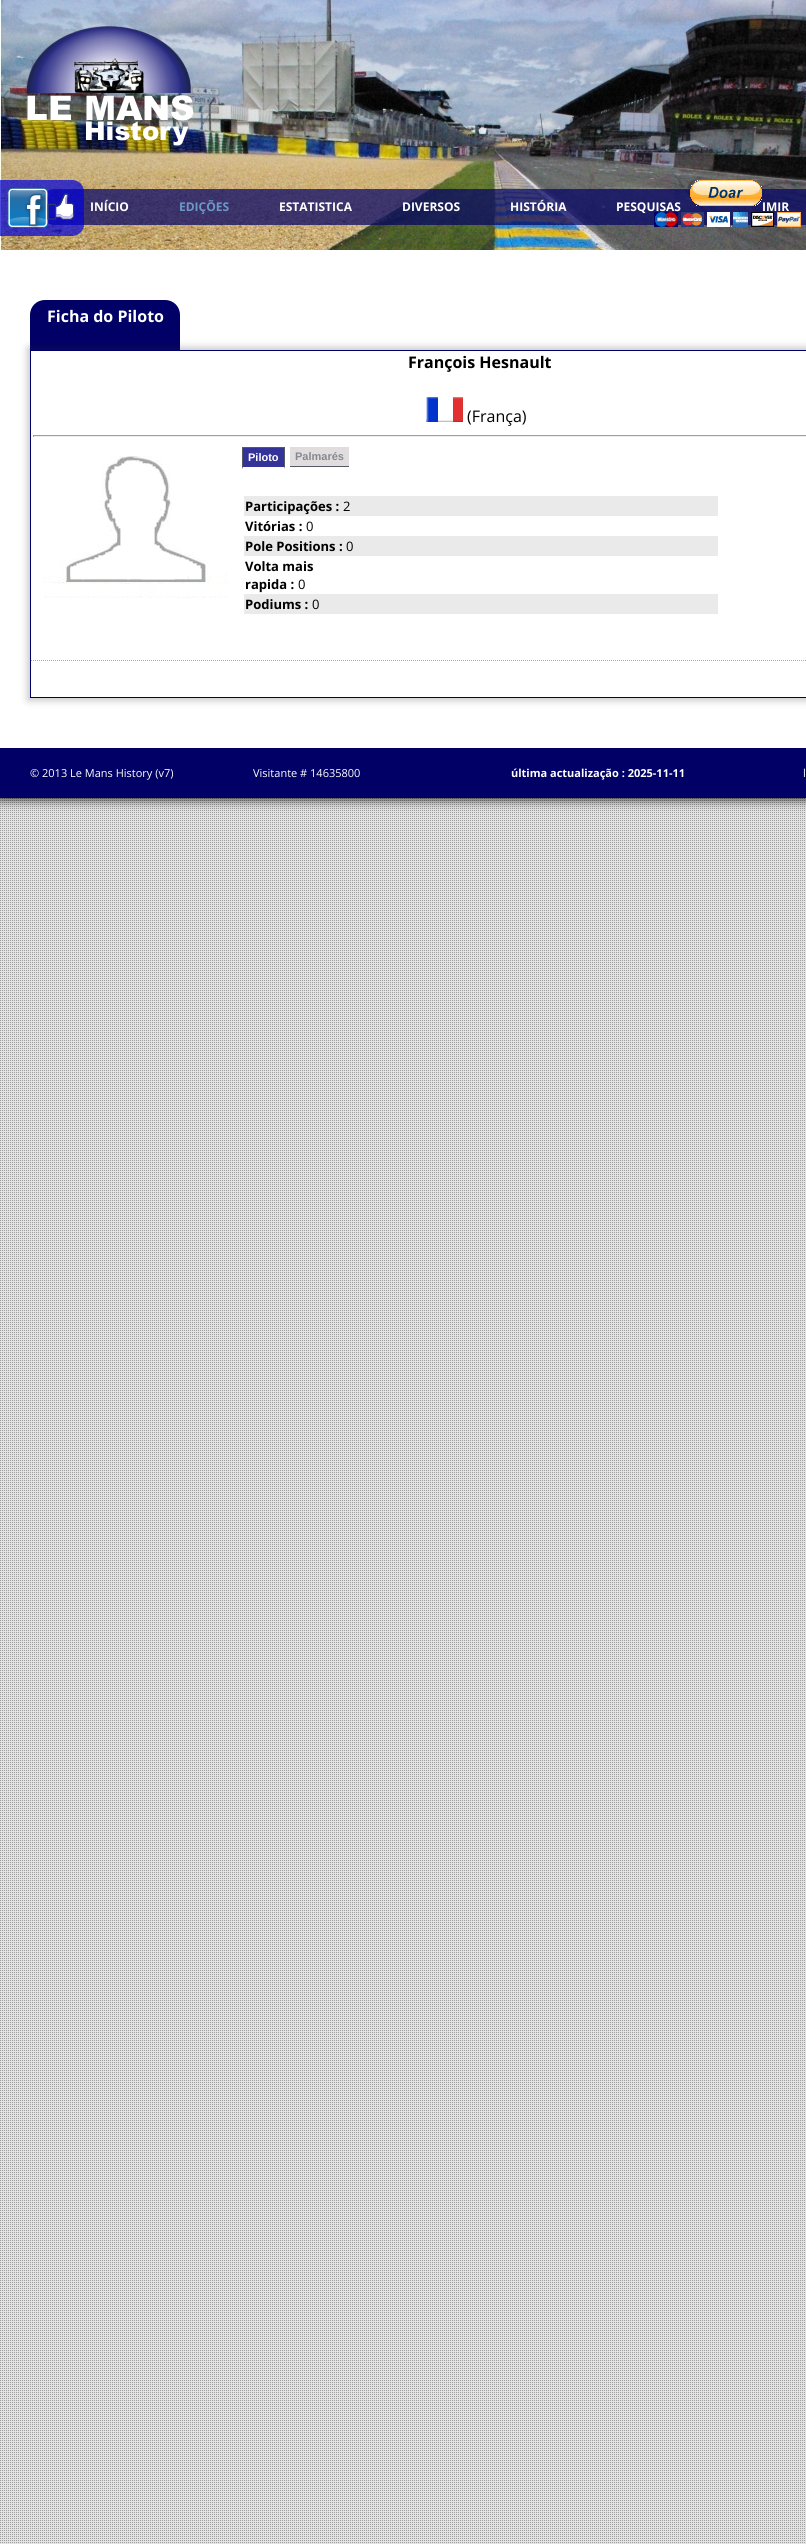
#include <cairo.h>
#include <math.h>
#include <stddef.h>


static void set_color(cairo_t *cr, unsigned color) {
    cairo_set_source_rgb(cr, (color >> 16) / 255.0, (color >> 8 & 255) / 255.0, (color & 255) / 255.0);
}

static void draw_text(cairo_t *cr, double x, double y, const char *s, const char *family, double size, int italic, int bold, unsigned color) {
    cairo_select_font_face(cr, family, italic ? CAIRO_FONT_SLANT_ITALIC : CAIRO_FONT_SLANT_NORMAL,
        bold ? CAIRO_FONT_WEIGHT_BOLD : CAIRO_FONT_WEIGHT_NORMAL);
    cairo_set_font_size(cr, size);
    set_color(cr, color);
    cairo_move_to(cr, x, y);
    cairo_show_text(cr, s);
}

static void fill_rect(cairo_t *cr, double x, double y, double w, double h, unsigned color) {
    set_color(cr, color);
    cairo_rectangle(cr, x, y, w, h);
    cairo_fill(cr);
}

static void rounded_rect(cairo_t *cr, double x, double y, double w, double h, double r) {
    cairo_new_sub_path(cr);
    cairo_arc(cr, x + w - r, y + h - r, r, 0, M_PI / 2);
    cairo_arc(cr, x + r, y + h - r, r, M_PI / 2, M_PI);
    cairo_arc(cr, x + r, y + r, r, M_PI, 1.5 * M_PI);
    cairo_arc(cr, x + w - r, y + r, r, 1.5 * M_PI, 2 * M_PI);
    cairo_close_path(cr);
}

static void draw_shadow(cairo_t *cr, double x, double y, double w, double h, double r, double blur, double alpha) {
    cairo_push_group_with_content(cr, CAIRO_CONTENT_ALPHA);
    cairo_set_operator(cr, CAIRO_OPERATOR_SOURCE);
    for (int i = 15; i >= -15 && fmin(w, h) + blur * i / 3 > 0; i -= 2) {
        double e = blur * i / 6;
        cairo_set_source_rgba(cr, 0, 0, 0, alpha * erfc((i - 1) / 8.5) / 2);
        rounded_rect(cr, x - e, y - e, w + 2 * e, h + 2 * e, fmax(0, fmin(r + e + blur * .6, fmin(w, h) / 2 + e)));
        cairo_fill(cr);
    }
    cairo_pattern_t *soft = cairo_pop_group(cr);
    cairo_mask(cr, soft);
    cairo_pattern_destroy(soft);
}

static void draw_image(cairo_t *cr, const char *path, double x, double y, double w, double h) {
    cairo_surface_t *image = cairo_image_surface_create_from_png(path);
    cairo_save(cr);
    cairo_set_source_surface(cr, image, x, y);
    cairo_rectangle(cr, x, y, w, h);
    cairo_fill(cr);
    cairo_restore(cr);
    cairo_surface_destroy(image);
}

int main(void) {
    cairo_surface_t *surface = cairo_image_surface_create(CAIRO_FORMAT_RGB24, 806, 2544);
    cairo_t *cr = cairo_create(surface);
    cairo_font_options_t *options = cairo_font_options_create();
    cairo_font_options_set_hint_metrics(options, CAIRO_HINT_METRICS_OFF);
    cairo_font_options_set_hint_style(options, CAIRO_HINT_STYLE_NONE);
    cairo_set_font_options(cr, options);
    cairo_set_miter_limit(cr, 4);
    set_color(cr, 0xE3E3E3);
    cairo_paint(cr);
    draw_image(cr, "assets/img1.png", 0, 798, 805, 1745);
    set_color(cr, 0x000000);
    draw_shadow(cr, 0, 0, 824, 798, 0, 6, 1);
    draw_image(cr, "assets/img4.png", 0, 0, 806, 250);
    cairo_set_source_rgba(cr, 0, 0, 0.4, 0.7);
    rounded_rect(cr, 40, 189, 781, 36, 15);
    cairo_fill(cr);
    draw_image(cr, "assets/img2.png", 0, 180, 84, 56);
    draw_text(cr, 616, 211, "PESQUISAS", "Open Sans", 12, 0, 1, 0xFFFFFF);
    draw_text(cr, 762, 211, "IMIR", "Open Sans", 12, 0, 1, 0xFFFFFF);
    draw_image(cr, "assets/img3.png", 654, 180, 147, 47);
    fill_rect(cr, 0, 250, 806, 498, 0xFFFFFF);
    draw_image(cr, "assets/img5.png", 26, 26, 168, 120);
    draw_text(cr, 90, 211, "INÍCIO", "Open Sans", 12, 0, 1, 0xFFFFFF);
    draw_text(cr, 179, 211, "EDIÇÕES", "Open Sans", 12, 0, 1, 0x6C98C6);
    draw_text(cr, 279, 211, "ESTATISTICA", "Open Sans", 12, 0, 1, 0xFFFFFF);
    draw_text(cr, 402, 211, "DIVERSOS", "Open Sans", 12, 0, 1, 0xFFFFFF);
    draw_text(cr, 510, 211, "HISTÓRIA", "Open Sans", 12, 0, 1, 0xFFFFFF);
    set_color(cr, 0x000066);
    cairo_new_path(cr);
    cairo_move_to(cr, 45, 300);
    cairo_line_to(cr, 165, 300);
    cairo_curve_to(cr, 173.5, 300, 180, 306.5, 180, 315);
    cairo_line_to(cr, 180, 350);
    cairo_line_to(cr, 30, 350);
    cairo_line_to(cr, 30, 315);
    cairo_curve_to(cr, 30, 306.5, 36.5, 300, 45, 300);
    cairo_close_path(cr);
    cairo_fill(cr);
    draw_text(cr, 47, 322, "Ficha do Piloto", "Open Sans", 16, 0, 1, 0xFFFFFF);
    cairo_save(cr);
    cairo_set_fill_rule(cr, CAIRO_FILL_RULE_EVEN_ODD);
    cairo_new_path(cr);
    cairo_move_to(cr, 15, 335);
    cairo_line_to(cr, 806, 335);
    cairo_line_to(cr, 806, 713);
    cairo_line_to(cr, 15, 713);
    cairo_close_path(cr);
    cairo_move_to(cr, 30, 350);
    cairo_line_to(cr, 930, 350);
    cairo_line_to(cr, 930, 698);
    cairo_line_to(cr, 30, 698);
    cairo_close_path(cr);
    cairo_clip(cr);
    set_color(cr, 0x2D2D2D);
    draw_shadow(cr, 28, 348, 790, 352, 0, 4, 0.3);
    cairo_restore(cr);
    cairo_rectangle(cr, 30.5, 350.5, 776, 347);
    set_color(cr, 0x000066);
    cairo_set_line_width(cr, 1);
    cairo_stroke(cr);
    draw_text(cr, 408, 368, "François Hesnault", "Open Sans", 16, 0, 1, 0x000000);
    draw_image(cr, "assets/img6.png", 426, 397, 37, 25);
    draw_text(cr, 467, 422, "(França)", "Open Sans", 16, 0, 0, 0x000000);
    fill_rect(cr, 33, 435, 773, 1, 0x9F9F9F);
    fill_rect(cr, 33, 436, 773, 1, 0xEEEEEE);
    fill_rect(cr, 33, 435, 1, 2, 0x9F9F9F);
    draw_image(cr, "assets/img7.png", 43, 456, 184, 142);
    fill_rect(cr, 243, 448, 41, 19, 0x333399);
    fill_rect(cr, 242, 447, 43, 1, 0x545A66);
    cairo_new_path(cr);
    cairo_move_to(cr, 285, 447);
    cairo_line_to(cr, 285, 469);
    cairo_line_to(cr, 284, 467);
    cairo_line_to(cr, 284, 448);
    cairo_close_path(cr);
    cairo_fill(cr);
    set_color(cr, 0xFFFFFF);
    cairo_new_path(cr);
    cairo_move_to(cr, 285, 469);
    cairo_line_to(cr, 242, 469);
    cairo_line_to(cr, 243, 467);
    cairo_line_to(cr, 284, 467);
    cairo_close_path(cr);
    cairo_fill(cr);
    set_color(cr, 0x545A66);
    cairo_new_path(cr);
    cairo_move_to(cr, 242, 469);
    cairo_line_to(cr, 242, 447);
    cairo_line_to(cr, 243, 448);
    cairo_line_to(cr, 243, 467);
    cairo_close_path(cr);
    cairo_fill(cr);
    draw_text(cr, 248, 461, "Piloto", "Liberation Sans", 11, 0, 1, 0xFFFFFF);
    fill_rect(cr, 290, 447, 59, 19, 0xE1DDDF);
    fill_rect(cr, 290, 466, 59, 1, 0x545A66);
    draw_text(cr, 295, 460, "Palmarés", "Liberation Sans", 11, 0, 1, 0x85898F);
    fill_rect(cr, 244, 496, 474, 20, 0xEAEAEA);
    draw_text(cr, 245, 511, "Participações :", "Open Sans", 13, 0, 1, 0x000000);
    draw_text(cr, 343, 511, "2", "Open Sans", 13, 0, 0, 0x000000);
    draw_text(cr, 245, 531, "Vitórias :", "Open Sans", 13, 0, 1, 0x000000);
    draw_text(cr, 306, 531, "0", "Open Sans", 13, 0, 0, 0x000000);
    fill_rect(cr, 244, 536, 474, 20, 0xEAEAEA);
    draw_text(cr, 245, 551, "Pole Positions :", "Open Sans", 13, 0, 1, 0x000000);
    draw_text(cr, 346, 551, "0", "Open Sans", 13, 0, 0, 0x000000);
    draw_text(cr, 245, 571, "Volta mais", "Open Sans", 13, 0, 1, 0x000000);
    draw_text(cr, 245, 589, "rapida :", "Open Sans", 13, 0, 1, 0x000000);
    draw_text(cr, 298, 589, "0", "Open Sans", 13, 0, 0, 0x000000);
    fill_rect(cr, 244, 594, 474, 20, 0xEAEAEA);
    draw_text(cr, 245, 609, "Podiums :", "Open Sans", 13, 0, 1, 0x000000);
    draw_text(cr, 312, 609, "0", "Open Sans", 13, 0, 0, 0x000000);
    cairo_new_path(cr);
    cairo_move_to(cr, 31, 660.5);
    cairo_line_to(cr, 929, 660.5);
    set_color(cr, 0xABABAB);
    cairo_set_dash(cr, (double[]){1, 1}, 2, 0);
    cairo_stroke(cr);
    fill_rect(cr, 0, 748, 806, 50, 0x000066);
    draw_text(cr, 30, 777, "© 2013 Le Mans History (v7)", "Open Sans", 11, 0, 0, 0xFFFFFF);
    draw_text(cr, 253, 777, "Visitante # 14635800", "Open Sans", 11, 0, 0, 0xFFFFFF);
    draw_text(cr, 511, 777, "última actualização : 2025-11-11", "Open Sans", 11, 0, 1, 0xFFFFFF);
    draw_text(cr, 803, 777, "l", "Open Sans", 11, 0, 0, 0xFFFFFF);
    cairo_surface_write_to_png(surface, "output.png");
    cairo_font_options_destroy(options);
    cairo_destroy(cr);
    cairo_surface_destroy(surface);
    return 0;
}
